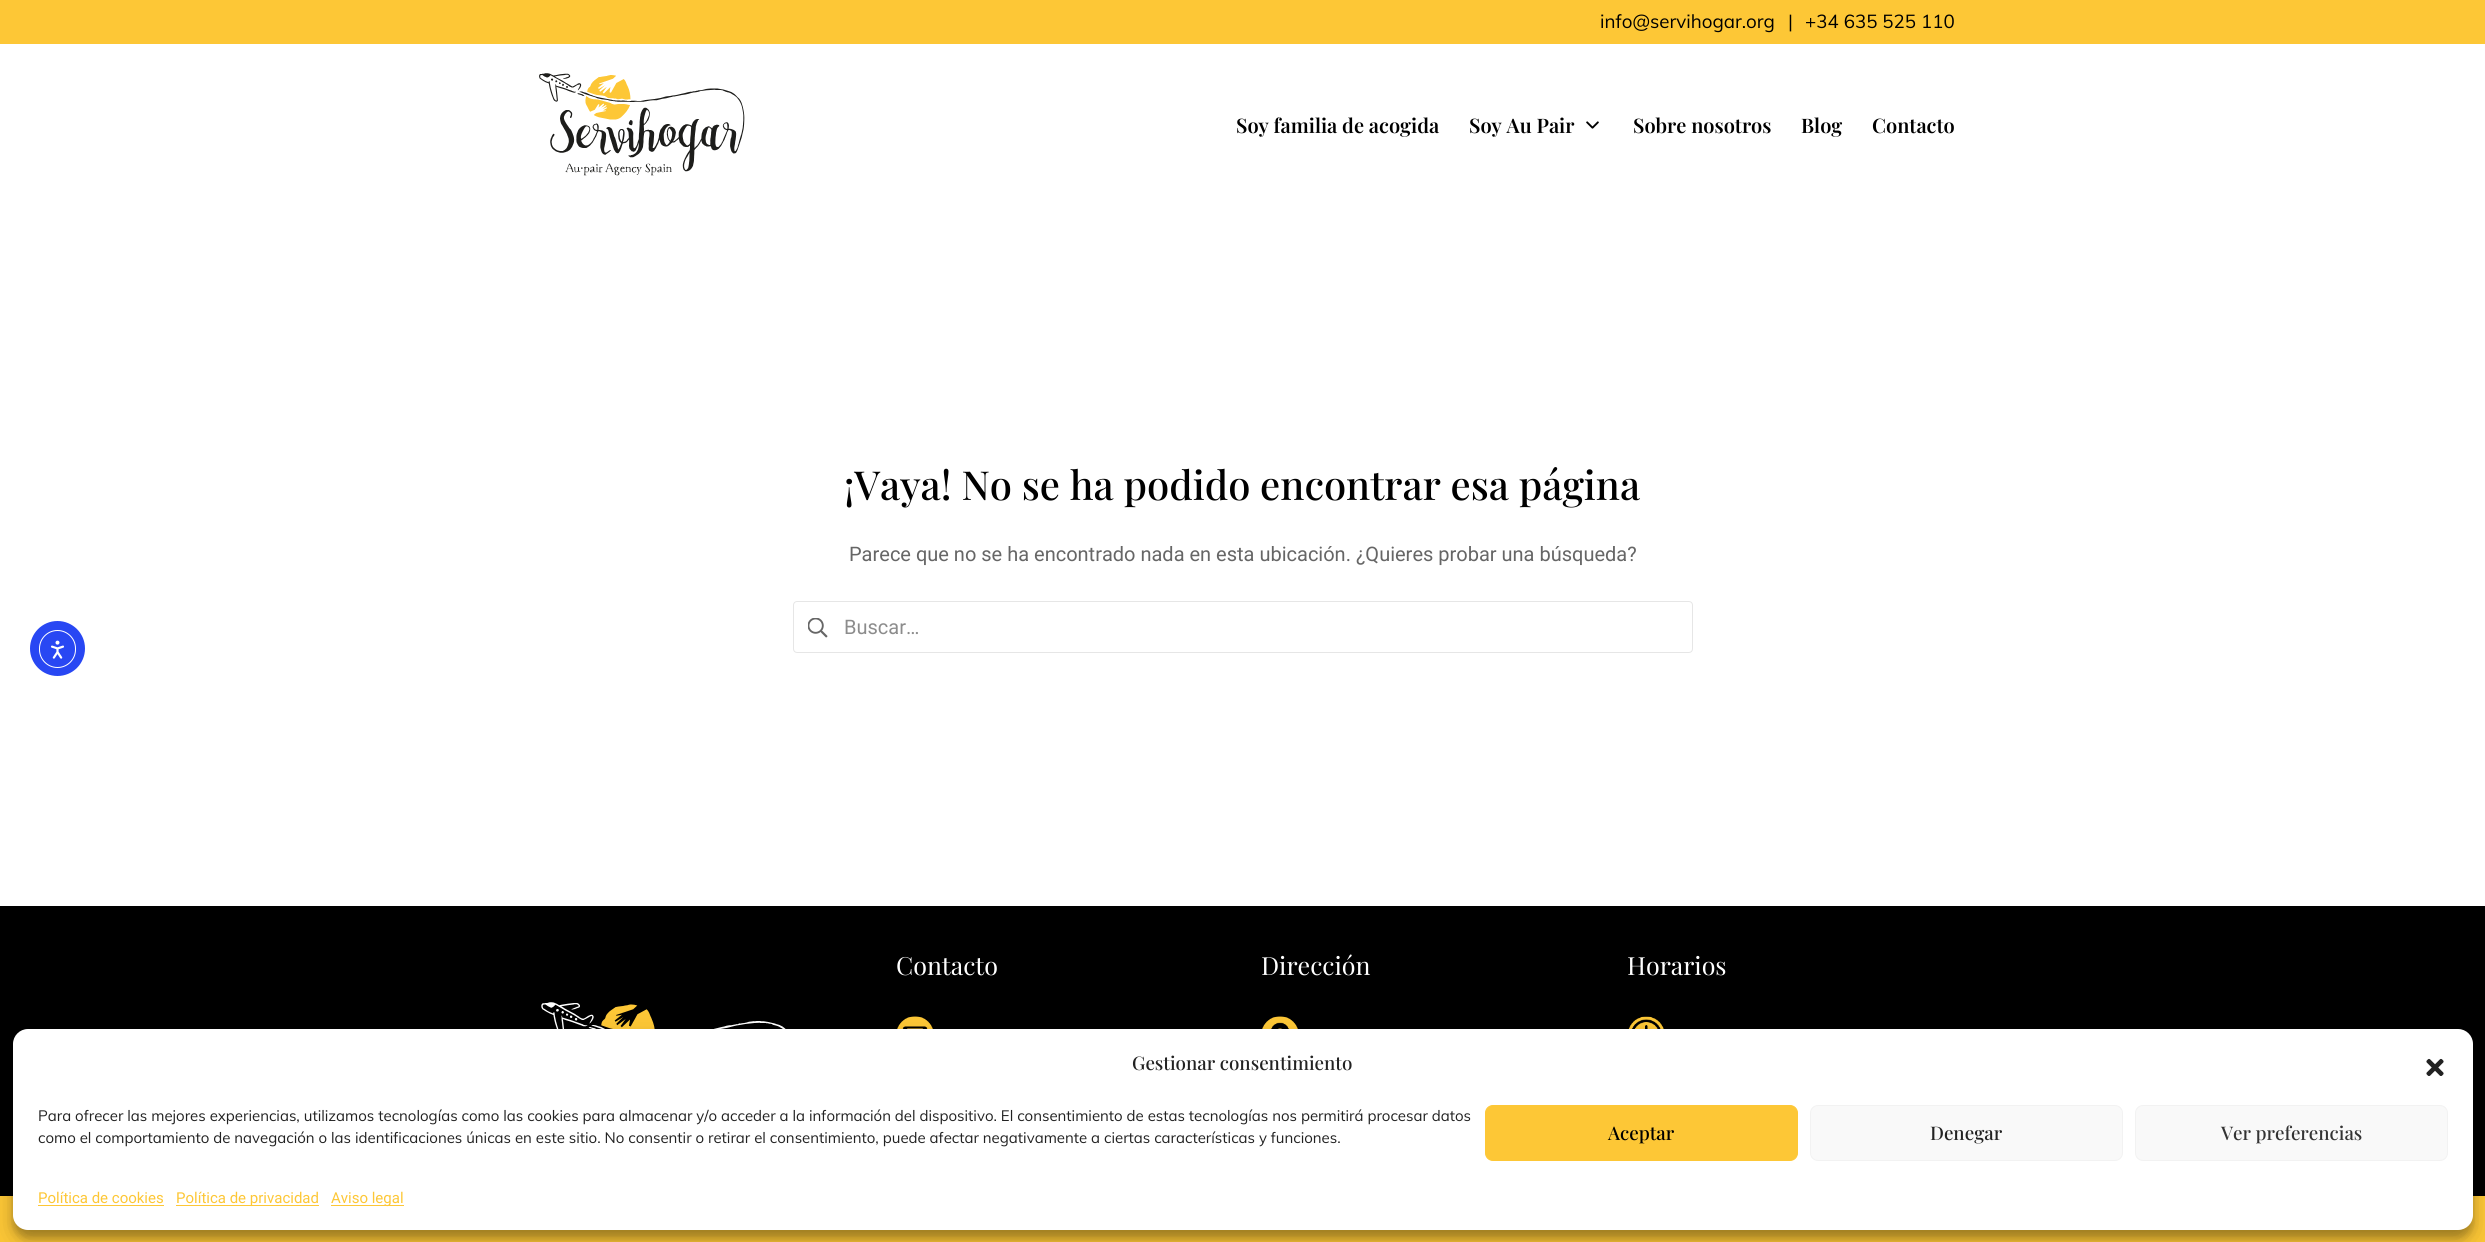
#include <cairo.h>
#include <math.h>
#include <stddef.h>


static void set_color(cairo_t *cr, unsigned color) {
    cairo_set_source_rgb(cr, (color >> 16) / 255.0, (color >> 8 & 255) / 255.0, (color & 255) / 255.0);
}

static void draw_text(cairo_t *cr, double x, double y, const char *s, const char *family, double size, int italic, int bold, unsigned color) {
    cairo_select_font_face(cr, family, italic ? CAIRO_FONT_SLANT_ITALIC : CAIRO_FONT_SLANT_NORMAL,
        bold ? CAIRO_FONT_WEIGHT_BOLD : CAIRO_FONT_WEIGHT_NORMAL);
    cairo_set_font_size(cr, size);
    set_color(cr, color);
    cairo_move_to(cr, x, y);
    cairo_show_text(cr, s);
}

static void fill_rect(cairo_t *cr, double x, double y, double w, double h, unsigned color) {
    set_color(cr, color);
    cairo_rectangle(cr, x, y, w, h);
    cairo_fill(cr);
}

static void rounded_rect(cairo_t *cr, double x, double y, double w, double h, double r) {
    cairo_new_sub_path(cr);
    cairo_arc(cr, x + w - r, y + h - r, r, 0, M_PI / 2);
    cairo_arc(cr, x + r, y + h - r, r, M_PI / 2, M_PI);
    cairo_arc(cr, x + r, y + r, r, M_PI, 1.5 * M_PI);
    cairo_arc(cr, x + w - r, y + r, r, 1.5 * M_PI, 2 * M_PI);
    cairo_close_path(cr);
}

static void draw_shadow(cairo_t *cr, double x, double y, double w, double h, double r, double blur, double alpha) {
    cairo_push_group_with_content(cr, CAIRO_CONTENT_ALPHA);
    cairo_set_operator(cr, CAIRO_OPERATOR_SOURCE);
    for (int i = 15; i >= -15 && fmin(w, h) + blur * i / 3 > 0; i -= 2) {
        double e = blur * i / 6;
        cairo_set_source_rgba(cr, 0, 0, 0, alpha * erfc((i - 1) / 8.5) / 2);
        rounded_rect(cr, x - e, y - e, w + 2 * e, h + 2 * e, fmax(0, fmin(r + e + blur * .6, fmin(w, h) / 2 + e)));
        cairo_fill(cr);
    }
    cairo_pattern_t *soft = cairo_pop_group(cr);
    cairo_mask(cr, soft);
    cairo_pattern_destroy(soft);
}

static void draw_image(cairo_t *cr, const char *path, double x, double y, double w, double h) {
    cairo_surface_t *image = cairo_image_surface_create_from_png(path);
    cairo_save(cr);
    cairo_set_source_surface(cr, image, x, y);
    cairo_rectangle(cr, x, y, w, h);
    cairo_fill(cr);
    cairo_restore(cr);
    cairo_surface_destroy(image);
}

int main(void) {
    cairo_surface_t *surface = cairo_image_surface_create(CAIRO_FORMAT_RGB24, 2485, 1242);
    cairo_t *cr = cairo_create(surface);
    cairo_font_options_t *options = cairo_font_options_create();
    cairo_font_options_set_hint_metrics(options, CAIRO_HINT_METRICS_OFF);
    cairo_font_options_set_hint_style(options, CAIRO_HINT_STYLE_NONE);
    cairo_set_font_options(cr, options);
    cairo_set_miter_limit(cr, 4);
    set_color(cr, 0xFFFFFF);
    cairo_paint(cr);
    set_color(cr, 0x2847F3);
    cairo_arc(cr, 57.5, 648.5, 27.5, 0, 2 * M_PI);
    cairo_fill(cr);
    rounded_rect(cr, 39.5, 630.5, 36, 37, 18);
    set_color(cr, 0xFFFFFF);
    cairo_set_line_width(cr, 1);
    cairo_stroke(cr);
    draw_image(cr, "assets/img1.png", 50, 640, 14, 19);
    fill_rect(cr, 0, 0, 2485, 44, 0xFDC736);
    draw_text(cr, 1600, 28, "info@servihogar.org", "Muli", 18.75, 0, 0, 0x000000);
    draw_text(cr, 1788, 28, "|", "Muli", 18.75, 0, 0, 0x000000);
    draw_text(cr, 1805, 28, "+34 635 525 110", "Muli", 18.75, 0, 0, 0x000000);
    draw_image(cr, "assets/img2.png", 539, 73, 206, 103);
    draw_text(cr, 1236, 133, "Soy familia de acogida", "Playfair Display SemiBold", 20, 0, 0, 0x000000);
    draw_text(cr, 1469, 133, "Soy Au Pair", "Playfair Display SemiBold", 20, 0, 0, 0x000000);
    draw_image(cr, "assets/img3.png", 1586, 121, 13, 8);
    draw_text(cr, 1633, 133, "Sobre nosotros", "Playfair Display SemiBold", 20, 0, 0, 0x000000);
    draw_text(cr, 1801, 133, "Blog", "Playfair Display SemiBold", 20, 0, 0, 0x000000);
    draw_text(cr, 1872, 133, "Contacto", "Playfair Display SemiBold", 20, 0, 0, 0x000000);
    draw_text(cr, 844, 500, "¡Vaya! No se ha podido encontrar esa página", "Playfair Display Medium", 40, 0, 0, 0x000000);
    draw_text(cr, 849, 561, "Parece que no se ha encontrado nada en esta ubicación. ¿Quieres probar una búsqueda?", "Roboto", 20, 0, 0, 0x666666);
    rounded_rect(cr, 793.5, 601.5, 899, 51, 3.5);
    set_color(cr, 0xE6E6E6);
    cairo_stroke(cr);
    draw_image(cr, "assets/img4.png", 808, 618, 20, 20);
    draw_text(cr, 844, 634, "Buscar…", "Roboto", 20, 0, 0, 0x8C8C8C);
    fill_rect(cr, 0, 906, 2485, 290, 0x000000);
    draw_text(cr, 896, 975, "Contacto", "Playfair Display", 25, 0, 0, 0xFFFFFF);
    draw_image(cr, "assets/img5.png", 897, 1016, 36, 13);
    draw_text(cr, 1261, 975, "Dirección", "Playfair Display", 25, 0, 0, 0xFFFFFF);
    draw_image(cr, "assets/img6.png", 1262, 1016, 36, 13);
    draw_text(cr, 1627, 975, "Horarios", "Playfair Display", 25, 0, 0, 0xFFFFFF);
    draw_image(cr, "assets/img7.png", 1628, 1016, 36, 13);
    draw_image(cr, "assets/img8.png", 541, 1002, 245, 27);
    fill_rect(cr, 0, 1196, 2485, 46, 0xFDC736);
    set_color(cr, 0x000000);
    draw_shadow(cr, 13, 1036, 2460, 202, 15, 4, 0.23);
    draw_shadow(cr, 13, 1041, 2460, 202, 15, 12.5, 0.19);
    set_color(cr, 0xFFFFFF);
    rounded_rect(cr, 13, 1029, 2460, 201, 15);
    cairo_fill(cr);
    draw_text(cr, 1132, 1070, "Gestionar consentimiento", "Playfair Display Medium", 18.75, 0, 0, 0x222222);
    draw_image(cr, "assets/img9.png", 2426, 1058, 18, 18);
    draw_text(cr, 38, 1121, "Para ofrecer las mejores experiencias, utilizamos tecnologías como las cookies para almacenar y/o acceder a la información del dispositivo. El consentimiento de estas tecnologías nos permitirá procesar datos", "Muli", 15, 0, 0, 0x222222);
    draw_text(cr, 38, 1143, "como el comportamiento de navegación o las identificaciones únicas en este sitio. No consentir o retirar el consentimiento, puede afectar negativamente a ciertas características y funciones.", "Muli", 15, 0, 0, 0x222222);
    set_color(cr, 0xFDC736);
    rounded_rect(cr, 1485.5, 1105.5, 312, 55, 7.5);
    cairo_fill_preserve(cr);
    cairo_stroke(cr);
    draw_text(cr, 1608, 1140, "Aceptar", "Playfair Display Medium", 18.75, 0, 0, 0x000000);
    set_color(cr, 0xF9F9F9);
    rounded_rect(cr, 1810.5, 1105.5, 312, 55, 7.5);
    cairo_fill_preserve(cr);
    set_color(cr, 0xF2F2F2);
    cairo_stroke(cr);
    draw_text(cr, 1930, 1140, "Denegar", "Playfair Display Medium", 18.75, 0, 0, 0x222222);
    set_color(cr, 0xF9F9F9);
    rounded_rect(cr, 2135.5, 1105.5, 312, 55, 7.5);
    cairo_fill_preserve(cr);
    set_color(cr, 0xF2F2F2);
    cairo_stroke(cr);
    draw_text(cr, 2221, 1140, "Ver preferencias", "Playfair Display Medium", 18.75, 0, 0, 0x333333);
    draw_text(cr, 38, 1203, "Política de cookies", "Roboto", 15, 0, 0, 0xFDC736);
    fill_rect(cr, 38, 1205, 126, 1, 0xFDC736);
    fill_rect(cr, 176, 1205, 143, 1, 0xFDC736);
    draw_text(cr, 176, 1203, "Política de privacidad", "Roboto", 15, 0, 0, 0xFDC736);
    fill_rect(cr, 331, 1205, 73, 1, 0xFDC736);
    draw_text(cr, 331, 1203, "Aviso legal", "Roboto", 15, 0, 0, 0xFDC736);
    cairo_surface_write_to_png(surface, "output.png");
    cairo_font_options_destroy(options);
    cairo_destroy(cr);
    cairo_surface_destroy(surface);
    return 0;
}
